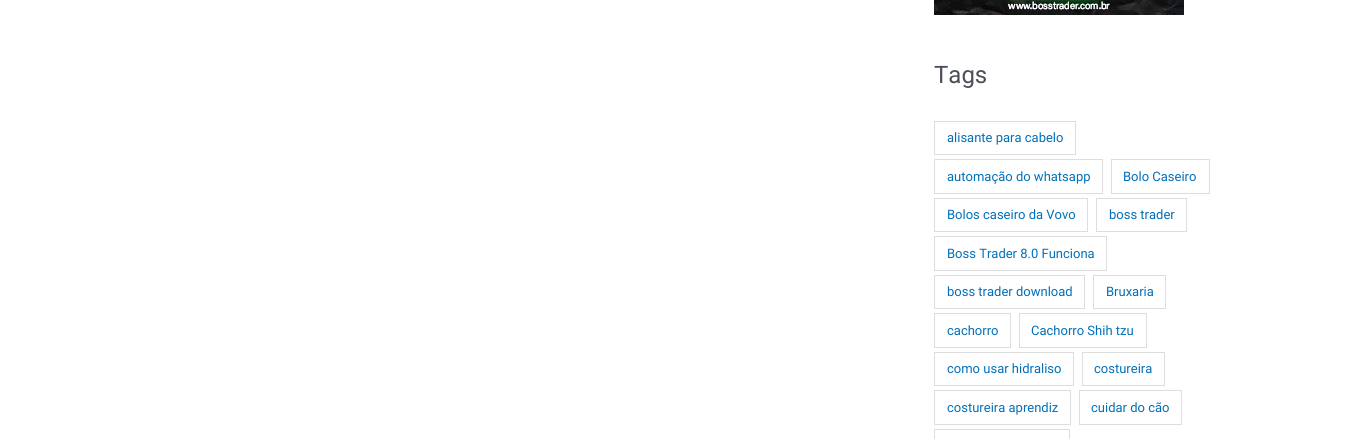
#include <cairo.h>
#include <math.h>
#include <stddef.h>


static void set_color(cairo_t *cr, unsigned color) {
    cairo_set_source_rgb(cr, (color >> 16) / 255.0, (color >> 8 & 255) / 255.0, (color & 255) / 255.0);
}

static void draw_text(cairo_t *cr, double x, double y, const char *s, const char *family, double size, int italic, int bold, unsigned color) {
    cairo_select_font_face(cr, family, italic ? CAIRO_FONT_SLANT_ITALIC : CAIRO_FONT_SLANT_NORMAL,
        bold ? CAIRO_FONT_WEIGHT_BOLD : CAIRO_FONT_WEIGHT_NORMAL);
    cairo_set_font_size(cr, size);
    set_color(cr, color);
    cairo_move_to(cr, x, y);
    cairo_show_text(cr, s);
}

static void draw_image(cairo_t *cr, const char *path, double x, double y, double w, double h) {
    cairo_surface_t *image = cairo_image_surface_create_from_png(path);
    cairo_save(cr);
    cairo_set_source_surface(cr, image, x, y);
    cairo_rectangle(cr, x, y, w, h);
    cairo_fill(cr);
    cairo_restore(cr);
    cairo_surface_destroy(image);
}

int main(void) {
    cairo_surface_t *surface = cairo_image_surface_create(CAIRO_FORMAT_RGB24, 1365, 439);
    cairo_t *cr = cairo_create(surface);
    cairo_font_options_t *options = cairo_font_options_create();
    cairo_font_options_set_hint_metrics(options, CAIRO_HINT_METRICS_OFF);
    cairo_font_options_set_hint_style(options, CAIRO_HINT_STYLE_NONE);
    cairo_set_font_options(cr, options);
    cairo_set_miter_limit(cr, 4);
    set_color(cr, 0xFFFFFF);
    cairo_paint(cr);
    draw_image(cr, "assets/img1.png", 934, 0, 250, 15);
    draw_text(cr, 934, 83, "Tags", "Roboto", 24, 0, 0, 0x4B4F58);
    cairo_rectangle(cr, 934.5, 121.5, 141, 33);
    set_color(cr, 0xDDDDDD);
    cairo_set_line_width(cr, 1);
    cairo_stroke(cr);
    draw_text(cr, 947, 142, "alisante para cabelo", "Roboto", 13, 0, 0, 0x0170B9);
    cairo_rectangle(cr, 934.5, 159.5, 168, 34);
    set_color(cr, 0xDDDDDD);
    cairo_stroke(cr);
    draw_text(cr, 947, 181, "automação do whatsapp", "Roboto", 13, 0, 0, 0x0170B9);
    cairo_rectangle(cr, 1111.5, 159.5, 98, 34);
    set_color(cr, 0xDDDDDD);
    cairo_stroke(cr);
    draw_text(cr, 1123, 181, "Bolo Caseiro", "Roboto", 13, 0, 0, 0x0170B9);
    cairo_rectangle(cr, 934.5, 198.5, 153, 33);
    set_color(cr, 0xDDDDDD);
    cairo_stroke(cr);
    draw_text(cr, 947, 219, "Bolos caseiro da Vovo", "Roboto", 13, 0, 0, 0x0170B9);
    cairo_rectangle(cr, 1096.5, 198.5, 90, 33);
    set_color(cr, 0xDDDDDD);
    cairo_stroke(cr);
    draw_text(cr, 1109, 219, "boss trader", "Roboto", 13, 0, 0, 0x0170B9);
    cairo_rectangle(cr, 934.5, 236.5, 172, 34);
    set_color(cr, 0xDDDDDD);
    cairo_stroke(cr);
    draw_text(cr, 947, 258, "Boss Trader 8.0 Funciona", "Roboto", 13, 0, 0, 0x0170B9);
    cairo_rectangle(cr, 934.5, 275.5, 150, 33);
    set_color(cr, 0xDDDDDD);
    cairo_stroke(cr);
    draw_text(cr, 947, 296, "boss trader download", "Roboto", 13, 0, 0, 0x0170B9);
    cairo_rectangle(cr, 1093.5, 275.5, 72, 33);
    set_color(cr, 0xDDDDDD);
    cairo_stroke(cr);
    draw_text(cr, 1106, 296, "Bruxaria", "Roboto", 13, 0, 0, 0x0170B9);
    cairo_rectangle(cr, 934.5, 313.5, 76, 34);
    set_color(cr, 0xDDDDDD);
    cairo_stroke(cr);
    draw_text(cr, 947, 335, "cachorro", "Roboto", 13, 0, 0, 0x0170B9);
    cairo_rectangle(cr, 1019.5, 313.5, 127, 34);
    set_color(cr, 0xDDDDDD);
    cairo_stroke(cr);
    draw_text(cr, 1031, 335, "Cachorro Shih tzu", "Roboto", 13, 0, 0, 0x0170B9);
    cairo_rectangle(cr, 934.5, 352.5, 139, 33);
    set_color(cr, 0xDDDDDD);
    cairo_stroke(cr);
    draw_text(cr, 947, 373, "como usar hidraliso", "Roboto", 13, 0, 0, 0x0170B9);
    cairo_rectangle(cr, 1082.5, 352.5, 82, 33);
    set_color(cr, 0xDDDDDD);
    cairo_stroke(cr);
    draw_text(cr, 1094, 373, "costureira", "Roboto", 13, 0, 0, 0x0170B9);
    cairo_rectangle(cr, 934.5, 390.5, 136, 34);
    set_color(cr, 0xDDDDDD);
    cairo_stroke(cr);
    draw_text(cr, 947, 412, "costureira aprendiz", "Roboto", 13, 0, 0, 0x0170B9);
    cairo_rectangle(cr, 1079.5, 390.5, 102, 34);
    set_color(cr, 0xDDDDDD);
    cairo_stroke(cr);
    draw_text(cr, 1091, 412, "cuidar do cão", "Roboto", 13, 0, 0, 0x0170B9);
    cairo_rectangle(cr, 934.5, 429.5, 135, 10);
    set_color(cr, 0xDDDDDD);
    cairo_stroke(cr);
    cairo_surface_write_to_png(surface, "output.png");
    cairo_font_options_destroy(options);
    cairo_destroy(cr);
    cairo_surface_destroy(surface);
    return 0;
}
